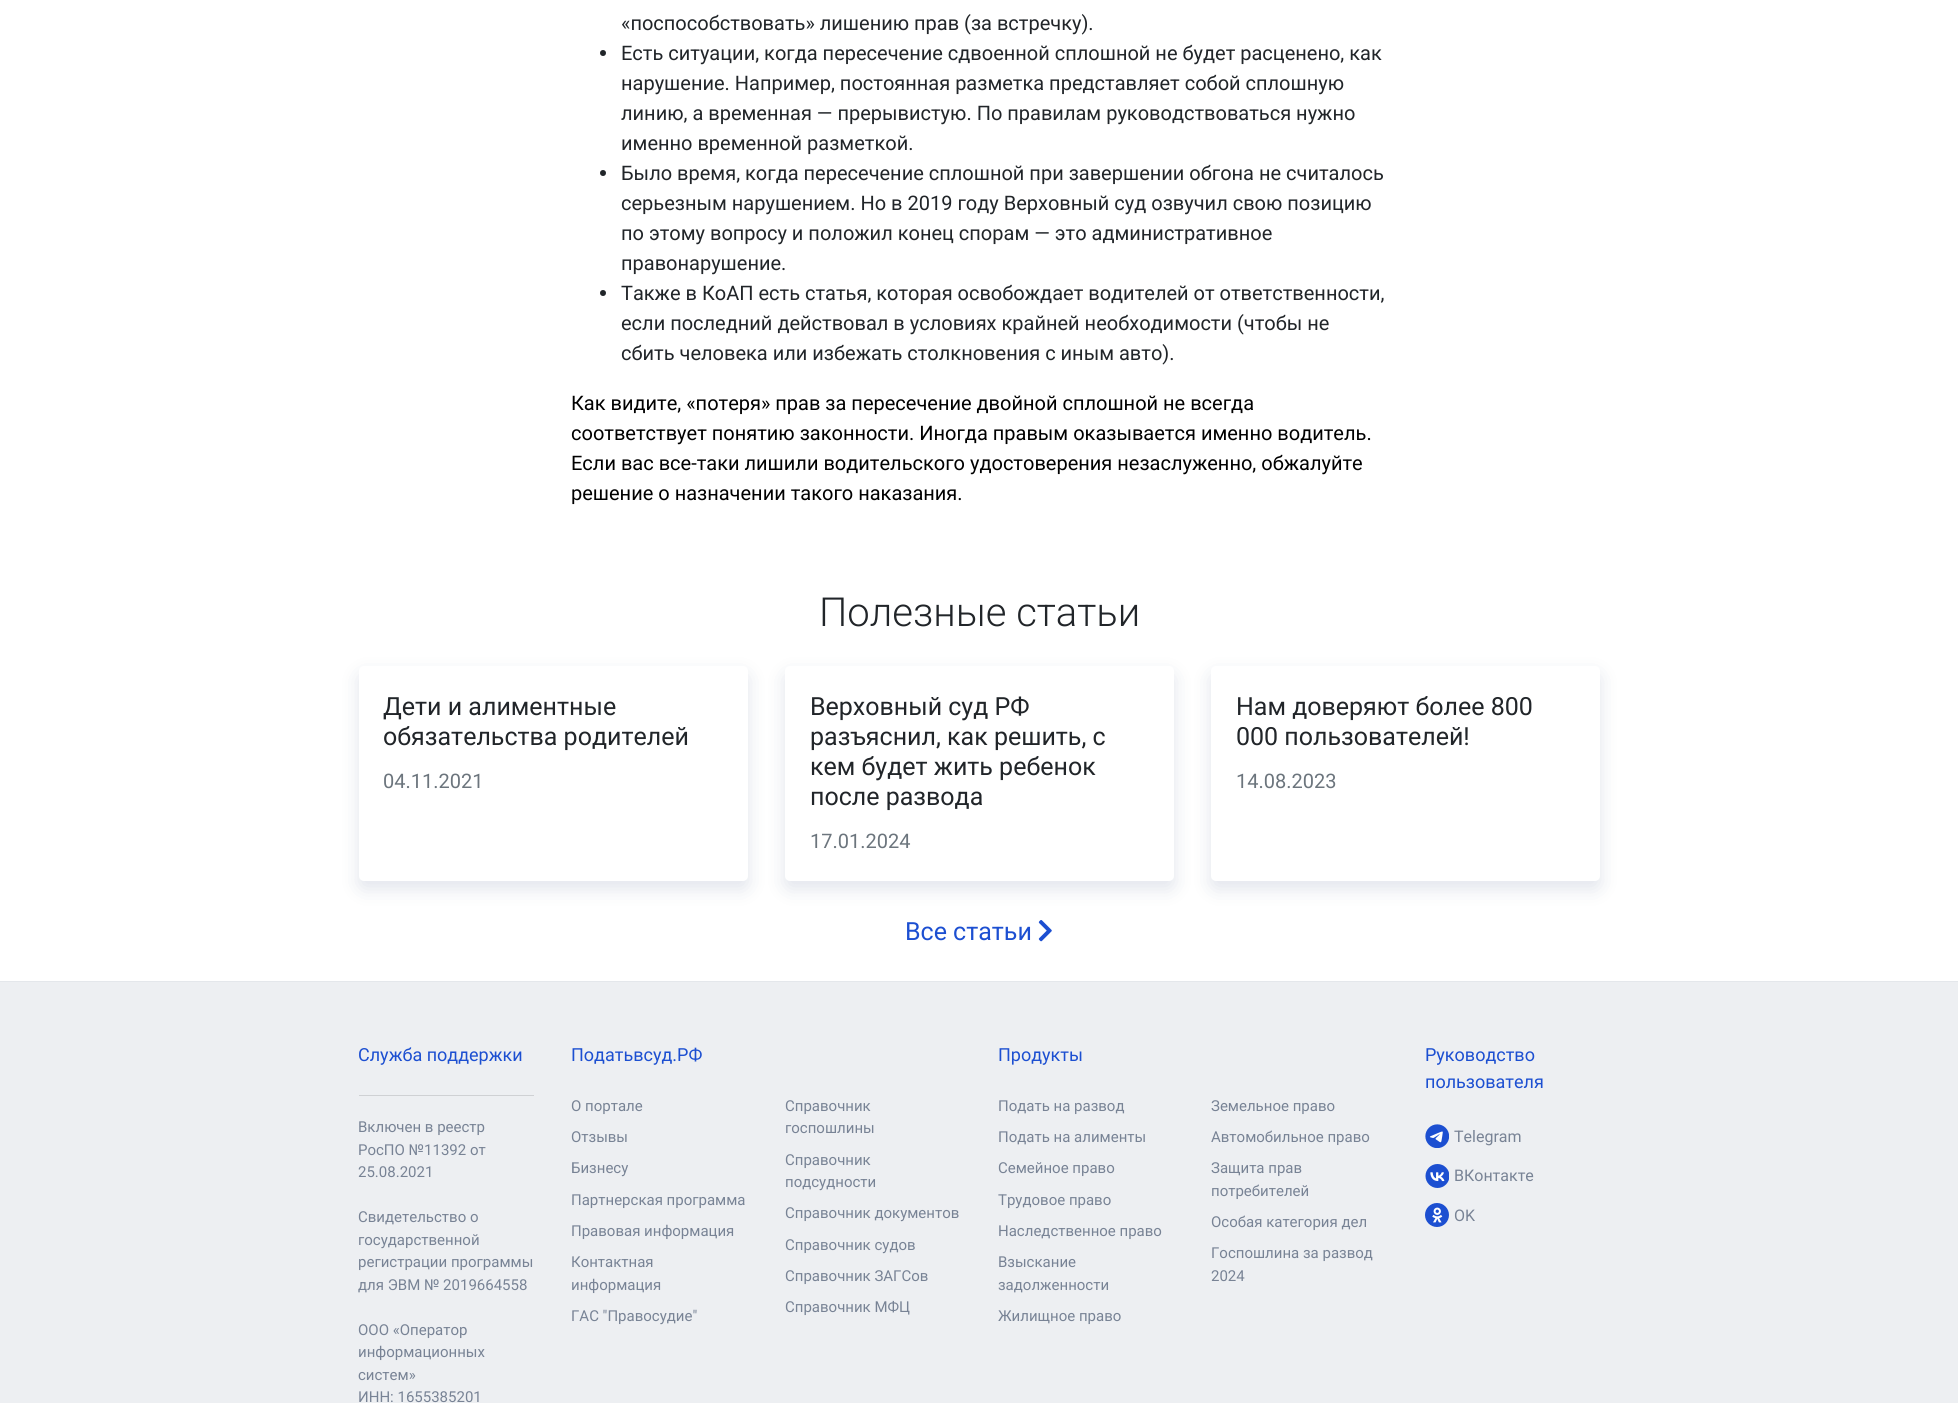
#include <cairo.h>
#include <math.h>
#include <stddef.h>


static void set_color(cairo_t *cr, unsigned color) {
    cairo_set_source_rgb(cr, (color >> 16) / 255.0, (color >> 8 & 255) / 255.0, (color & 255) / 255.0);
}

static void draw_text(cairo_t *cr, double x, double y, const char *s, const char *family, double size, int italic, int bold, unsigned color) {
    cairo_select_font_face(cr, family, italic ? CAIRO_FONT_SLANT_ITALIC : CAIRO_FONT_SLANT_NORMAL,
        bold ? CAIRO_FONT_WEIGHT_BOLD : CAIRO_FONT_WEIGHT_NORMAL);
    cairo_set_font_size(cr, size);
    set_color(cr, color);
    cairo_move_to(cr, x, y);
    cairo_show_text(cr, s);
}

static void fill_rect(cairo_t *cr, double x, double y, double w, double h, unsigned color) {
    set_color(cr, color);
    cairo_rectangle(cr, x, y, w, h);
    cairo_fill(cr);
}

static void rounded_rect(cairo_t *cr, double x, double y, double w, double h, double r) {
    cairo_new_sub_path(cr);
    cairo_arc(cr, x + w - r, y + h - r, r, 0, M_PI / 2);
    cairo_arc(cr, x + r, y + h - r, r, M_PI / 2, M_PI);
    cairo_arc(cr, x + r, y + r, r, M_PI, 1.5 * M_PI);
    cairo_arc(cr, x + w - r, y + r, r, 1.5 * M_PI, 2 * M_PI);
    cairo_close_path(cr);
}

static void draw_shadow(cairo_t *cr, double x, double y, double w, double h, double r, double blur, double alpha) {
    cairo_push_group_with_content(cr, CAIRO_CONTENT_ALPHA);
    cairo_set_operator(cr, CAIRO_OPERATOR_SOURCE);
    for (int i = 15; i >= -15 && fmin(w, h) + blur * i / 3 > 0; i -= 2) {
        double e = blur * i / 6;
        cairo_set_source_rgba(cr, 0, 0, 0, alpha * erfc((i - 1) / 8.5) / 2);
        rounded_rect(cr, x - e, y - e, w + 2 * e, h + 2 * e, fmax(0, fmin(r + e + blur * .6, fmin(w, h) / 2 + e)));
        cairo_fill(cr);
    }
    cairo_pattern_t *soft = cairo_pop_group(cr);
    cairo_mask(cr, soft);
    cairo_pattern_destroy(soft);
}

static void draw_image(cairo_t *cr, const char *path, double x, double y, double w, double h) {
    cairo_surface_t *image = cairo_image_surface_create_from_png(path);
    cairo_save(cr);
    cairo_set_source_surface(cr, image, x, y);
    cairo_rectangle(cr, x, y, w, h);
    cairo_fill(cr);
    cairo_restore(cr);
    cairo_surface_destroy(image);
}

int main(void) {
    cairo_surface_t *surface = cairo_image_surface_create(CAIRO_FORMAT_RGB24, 1958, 1403);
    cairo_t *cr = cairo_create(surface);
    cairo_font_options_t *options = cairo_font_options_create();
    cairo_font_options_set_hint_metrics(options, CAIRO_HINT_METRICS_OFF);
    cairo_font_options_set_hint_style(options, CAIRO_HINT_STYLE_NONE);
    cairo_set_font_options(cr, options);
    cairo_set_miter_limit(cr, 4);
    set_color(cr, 0xFFFFFF);
    cairo_paint(cr);
    draw_text(cr, 621, 30, "«поспособствовать» лишению прав (за встречку).", "Roboto", 20, 0, 0, 0x212529);
    cairo_new_path(cr);
    cairo_arc(cr, 603, 53, 3, 0, 2 * M_PI);
    cairo_fill(cr);
    draw_text(cr, 621, 60, "Есть ситуации, когда пересечение сдвоенной сплошной не будет расценено, как", "Roboto", 20, 0, 0, 0x212529);
    draw_text(cr, 621, 90, "нарушение. Например, постоянная разметка представляет собой сплошную", "Roboto", 20, 0, 0, 0x212529);
    draw_text(cr, 621, 120, "линию, а временная — прерывистую. По правилам руководствоваться нужно", "Roboto", 20, 0, 0, 0x212529);
    draw_text(cr, 621, 150, "именно временной разметкой.", "Roboto", 20, 0, 0, 0x212529);
    cairo_new_path(cr);
    cairo_arc(cr, 603, 173, 3, 0, 2 * M_PI);
    cairo_fill(cr);
    draw_text(cr, 621, 180, "Было время, когда пересечение сплошной при завершении обгона не считалось", "Roboto", 20, 0, 0, 0x212529);
    draw_text(cr, 621, 210, "серьезным нарушением. Но в 2019 году Верховный суд озвучил свою позицию", "Roboto", 20, 0, 0, 0x212529);
    draw_text(cr, 621, 240, "по этому вопросу и положил конец спорам — это административное", "Roboto", 20, 0, 0, 0x212529);
    draw_text(cr, 621, 270, "правонарушение.", "Roboto", 20, 0, 0, 0x212529);
    cairo_new_path(cr);
    cairo_arc(cr, 603, 293, 3, 0, 2 * M_PI);
    cairo_fill(cr);
    draw_text(cr, 621, 300, "Также в КоАП есть статья, которая освобождает водителей от ответственности,", "Roboto", 20, 0, 0, 0x212529);
    draw_text(cr, 621, 330, "если последний действовал в условиях крайней необходимости (чтобы не", "Roboto", 20, 0, 0, 0x212529);
    draw_text(cr, 621, 360, "сбить человека или избежать столкновения с иным авто).", "Roboto", 20, 0, 0, 0x212529);
    draw_text(cr, 571, 410, "Как видите, «потеря» прав за пересечение двойной сплошной не всегда", "Roboto", 20, 0, 0, 0x000000);
    draw_text(cr, 571, 440, "соответствует понятию законности. Иногда правым оказывается именно водитель.", "Roboto", 20, 0, 0, 0x000000);
    draw_text(cr, 571, 470, "Если вас все-таки лишили водительского удостоверения незаслуженно, обжалуйте", "Roboto", 20, 0, 0, 0x000000);
    draw_text(cr, 571, 500, "решение о назначении такого наказания.", "Roboto", 20, 0, 0, 0x000000);
    draw_text(cr, 819, 626, "Полезные статьи", "Roboto Light", 40, 0, 0, 0x212529);
    set_color(cr, 0x364C7E);
    draw_shadow(cr, 359, 674, 389, 215, 5, 9.5, 0.15);
    set_color(cr, 0xFFFFFF);
    rounded_rect(cr, 359, 666, 389, 215, 5);
    cairo_fill(cr);
    draw_text(cr, 383, 715, "Дети и алиментные", "Roboto", 25, 0, 0, 0x212529);
    draw_text(cr, 383, 745, "обязательства родителей", "Roboto", 25, 0, 0, 0x212529);
    draw_text(cr, 383, 788, "04.11.2021", "Roboto", 20, 0, 0, 0x6C757D);
    set_color(cr, 0x364C7E);
    draw_shadow(cr, 785, 674, 389, 215, 5, 9.5, 0.15);
    set_color(cr, 0xFFFFFF);
    rounded_rect(cr, 785, 666, 389, 215, 5);
    cairo_fill(cr);
    draw_text(cr, 810, 715, "Верховный суд РФ", "Roboto", 25, 0, 0, 0x212529);
    draw_text(cr, 810, 745, "разъяснил, как решить, с", "Roboto", 25, 0, 0, 0x212529);
    draw_text(cr, 810, 775, "кем будет жить ребенок", "Roboto", 25, 0, 0, 0x212529);
    draw_text(cr, 810, 805, "после развода", "Roboto", 25, 0, 0, 0x212529);
    draw_text(cr, 810, 848, "17.01.2024", "Roboto", 20, 0, 0, 0x6C757D);
    set_color(cr, 0x364C7E);
    draw_shadow(cr, 1211, 674, 389, 215, 5, 9.5, 0.15);
    set_color(cr, 0xFFFFFF);
    rounded_rect(cr, 1211, 666, 389, 215, 5);
    cairo_fill(cr);
    draw_text(cr, 1236, 715, "Нам доверяют более 800", "Roboto", 25, 0, 0, 0x212529);
    draw_text(cr, 1236, 745, "000 пользователей!", "Roboto", 25, 0, 0, 0x212529);
    draw_text(cr, 1236, 788, "14.08.2023", "Roboto", 20, 0, 0, 0x6C757D);
    draw_text(cr, 905, 940, "Все статьи", "Roboto", 25, 0, 0, 0x1C4FD1);
    draw_image(cr, "assets/img1.png", 1038, 920, 14, 22);
    fill_rect(cr, 0, 982, 1958, 421, 0xEDEFF2);
    fill_rect(cr, 0, 981, 1958, 1, 0xE4E7EB);
    draw_text(cr, 358, 1061, "Служба поддержки", "Roboto", 18, 0, 0, 0x1C4FD1);
    fill_rect(cr, 359, 1095, 175, 1, 0xCFD1D4);
    draw_text(cr, 358, 1132, "Включен в реестр", "Roboto", 15, 0, 0, 0x788395);
    draw_text(cr, 358, 1155, "РосПО №11392 от", "Roboto", 15, 0, 0, 0x788395);
    draw_text(cr, 358, 1177, "25.08.2021", "Roboto", 15, 0, 0, 0x788395);
    draw_text(cr, 358, 1222, "Свидетельство о", "Roboto", 15, 0, 0, 0x788395);
    draw_text(cr, 358, 1245, "государственной", "Roboto", 15, 0, 0, 0x788395);
    draw_text(cr, 358, 1267, "регистрации программы", "Roboto", 15, 0, 0, 0x788395);
    draw_text(cr, 358, 1290, "для ЭВМ № 2019664558", "Roboto", 15, 0, 0, 0x788395);
    draw_text(cr, 358, 1335, "ООО «Оператор", "Roboto", 15, 0, 0, 0x788395);
    draw_text(cr, 358, 1357, "информационных", "Roboto", 15, 0, 0, 0x788395);
    draw_text(cr, 358, 1380, "систем»", "Roboto", 15, 0, 0, 0x788395);
    draw_text(cr, 358, 1402, "ИНН: 1655385201", "Roboto", 15, 0, 0, 0x788395);
    draw_text(cr, 571, 1061, "Податьвсуд.РФ", "Roboto", 18, 0, 0, 0x1C4FD1);
    draw_text(cr, 571, 1111, "О портале", "Roboto", 15, 0, 0, 0x788395);
    draw_text(cr, 571, 1142, "Отзывы", "Roboto", 15, 0, 0, 0x788395);
    draw_text(cr, 571, 1173, "Бизнесу", "Roboto", 15, 0, 0, 0x788395);
    draw_text(cr, 571, 1205, "Партнерская программа", "Roboto", 15, 0, 0, 0x788395);
    draw_text(cr, 571, 1236, "Правовая информация", "Roboto", 15, 0, 0, 0x788395);
    draw_text(cr, 571, 1267, "Контактная", "Roboto", 15, 0, 0, 0x788395);
    draw_text(cr, 571, 1290, "информация", "Roboto", 15, 0, 0, 0x788395);
    draw_text(cr, 571, 1321, "ГАС \"Правосудие\"", "Roboto", 15, 0, 0, 0x788395);
    draw_text(cr, 785, 1111, "Справочник", "Roboto", 15, 0, 0, 0x788395);
    draw_text(cr, 785, 1133, "госпошлины", "Roboto", 15, 0, 0, 0x788395);
    draw_text(cr, 785, 1165, "Справочник", "Roboto", 15, 0, 0, 0x788395);
    draw_text(cr, 785, 1187, "подсудности", "Roboto", 15, 0, 0, 0x788395);
    draw_text(cr, 785, 1218, "Справочник документов", "Roboto", 15, 0, 0, 0x788395);
    draw_text(cr, 785, 1250, "Справочник судов", "Roboto", 15, 0, 0, 0x788395);
    draw_text(cr, 785, 1281, "Справочник ЗАГСов", "Roboto", 15, 0, 0, 0x788395);
    draw_text(cr, 785, 1312, "Справочник МФЦ", "Roboto", 15, 0, 0, 0x788395);
    draw_text(cr, 998, 1061, "Продукты", "Roboto", 18, 0, 0, 0x1C4FD1);
    draw_text(cr, 998, 1111, "Подать на развод", "Roboto", 15, 0, 0, 0x788395);
    draw_text(cr, 998, 1142, "Подать на алименты", "Roboto", 15, 0, 0, 0x788395);
    draw_text(cr, 998, 1173, "Семейное право", "Roboto", 15, 0, 0, 0x788395);
    draw_text(cr, 998, 1205, "Трудовое право", "Roboto", 15, 0, 0, 0x788395);
    draw_text(cr, 998, 1236, "Наследственное право", "Roboto", 15, 0, 0, 0x788395);
    draw_text(cr, 998, 1267, "Взыскание", "Roboto", 15, 0, 0, 0x788395);
    draw_text(cr, 998, 1290, "задолженности", "Roboto", 15, 0, 0, 0x788395);
    draw_text(cr, 998, 1321, "Жилищное право", "Roboto", 15, 0, 0, 0x788395);
    draw_text(cr, 1211, 1111, "Земельное право", "Roboto", 15, 0, 0, 0x788395);
    draw_text(cr, 1211, 1142, "Автомобильное право", "Roboto", 15, 0, 0, 0x788395);
    draw_text(cr, 1211, 1173, "Защита прав", "Roboto", 15, 0, 0, 0x788395);
    draw_text(cr, 1211, 1196, "потребителей", "Roboto", 15, 0, 0, 0x788395);
    draw_text(cr, 1211, 1227, "Особая категория дел", "Roboto", 15, 0, 0, 0x788395);
    draw_text(cr, 1211, 1258, "Госпошлина за развод", "Roboto", 15, 0, 0, 0x788395);
    draw_text(cr, 1211, 1281, "2024", "Roboto", 15, 0, 0, 0x788395);
    draw_text(cr, 1425, 1061, "Руководство", "Roboto", 18, 0, 0, 0x1C4FD1);
    draw_text(cr, 1425, 1088, "пользователя", "Roboto", 18, 0, 0, 0x1C4FD1);
    draw_image(cr, "assets/img2.png", 1425, 1124, 24, 24);
    draw_text(cr, 1454, 1142, "Telegram", "Roboto", 16, 0, 0, 0x788395);
    draw_image(cr, "assets/img3.png", 1425, 1164, 24, 24);
    draw_text(cr, 1454, 1181, "ВКонтакте", "Roboto", 16, 0, 0, 0x788395);
    draw_image(cr, "assets/img4.png", 1425, 1203, 24, 24);
    draw_text(cr, 1454, 1221, "OK", "Roboto", 16, 0, 0, 0x788395);
    cairo_surface_write_to_png(surface, "output.png");
    cairo_font_options_destroy(options);
    cairo_destroy(cr);
    cairo_surface_destroy(surface);
    return 0;
}
